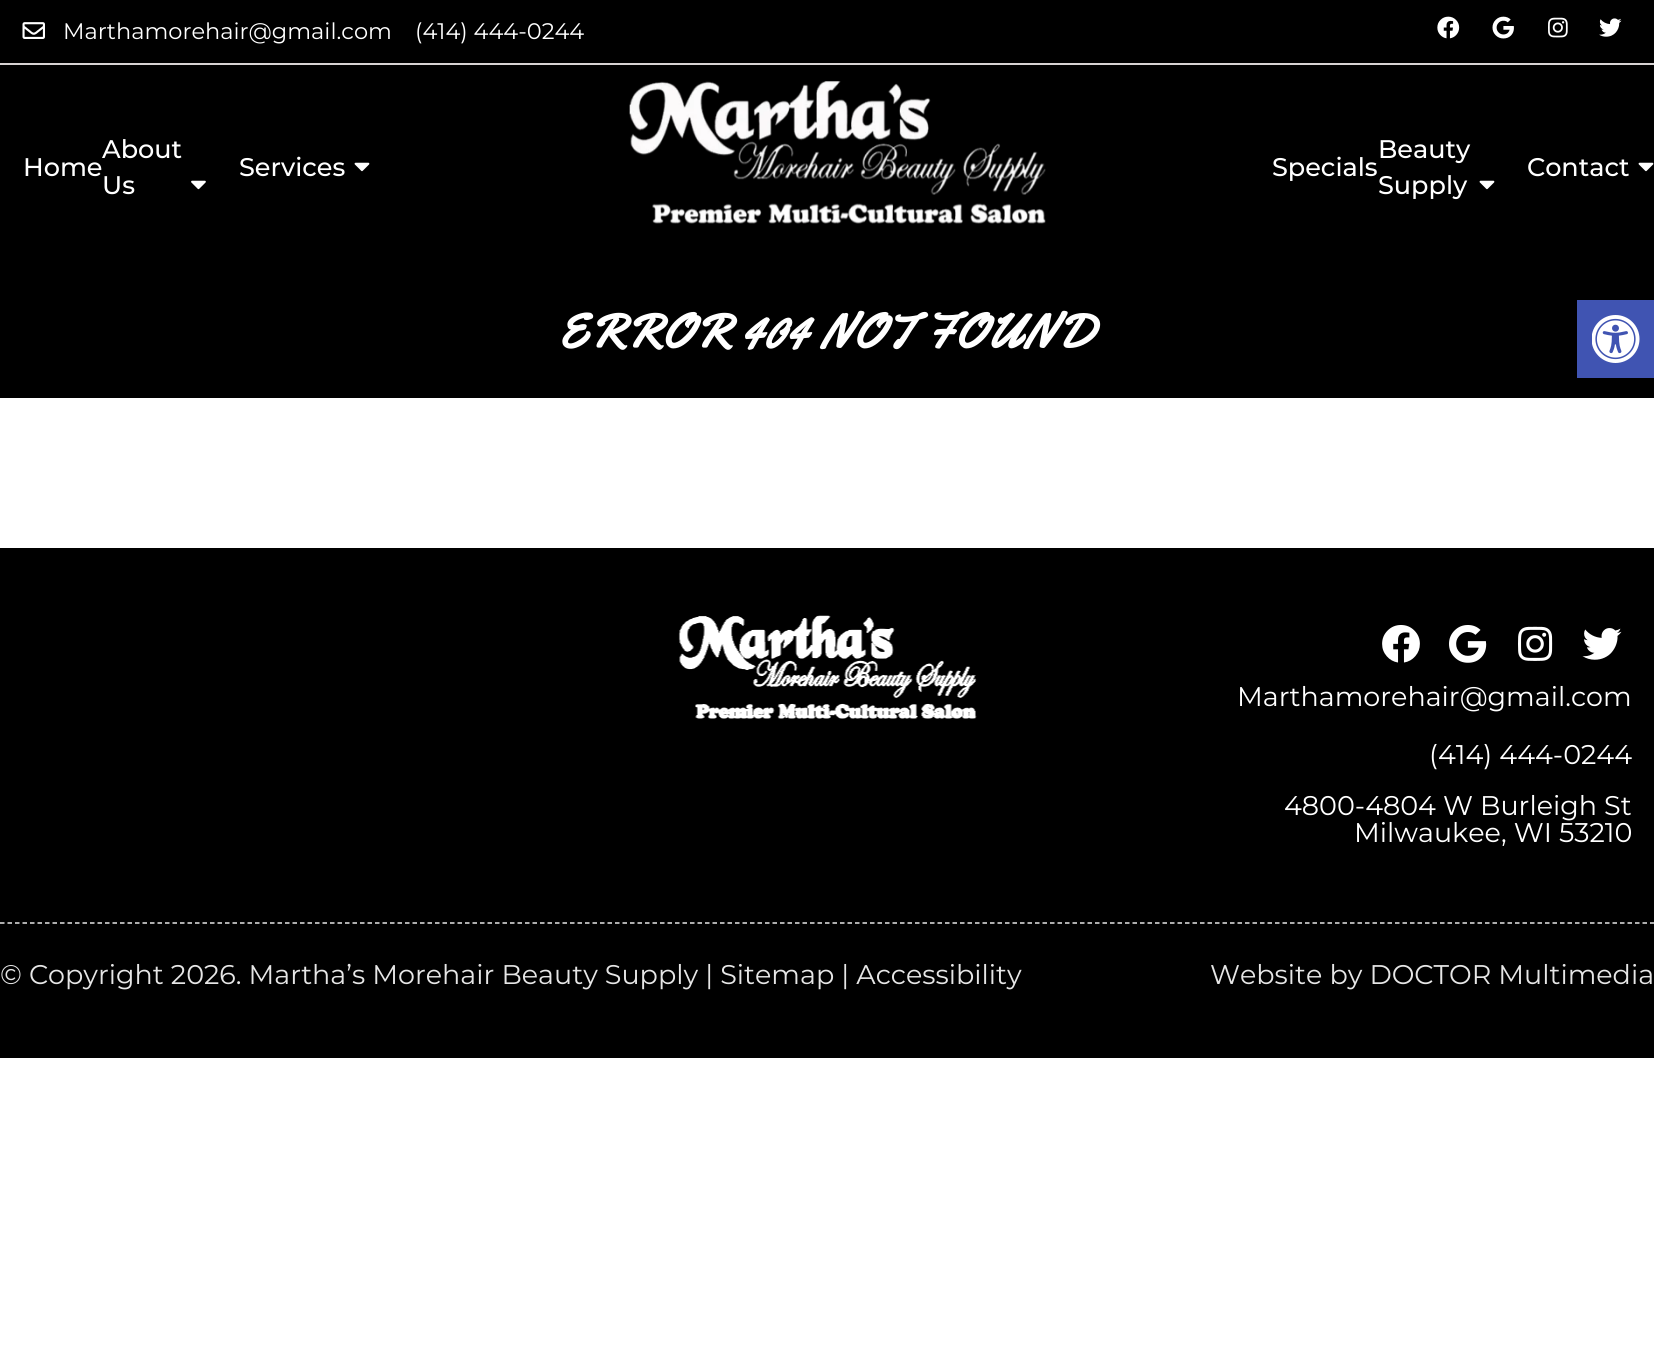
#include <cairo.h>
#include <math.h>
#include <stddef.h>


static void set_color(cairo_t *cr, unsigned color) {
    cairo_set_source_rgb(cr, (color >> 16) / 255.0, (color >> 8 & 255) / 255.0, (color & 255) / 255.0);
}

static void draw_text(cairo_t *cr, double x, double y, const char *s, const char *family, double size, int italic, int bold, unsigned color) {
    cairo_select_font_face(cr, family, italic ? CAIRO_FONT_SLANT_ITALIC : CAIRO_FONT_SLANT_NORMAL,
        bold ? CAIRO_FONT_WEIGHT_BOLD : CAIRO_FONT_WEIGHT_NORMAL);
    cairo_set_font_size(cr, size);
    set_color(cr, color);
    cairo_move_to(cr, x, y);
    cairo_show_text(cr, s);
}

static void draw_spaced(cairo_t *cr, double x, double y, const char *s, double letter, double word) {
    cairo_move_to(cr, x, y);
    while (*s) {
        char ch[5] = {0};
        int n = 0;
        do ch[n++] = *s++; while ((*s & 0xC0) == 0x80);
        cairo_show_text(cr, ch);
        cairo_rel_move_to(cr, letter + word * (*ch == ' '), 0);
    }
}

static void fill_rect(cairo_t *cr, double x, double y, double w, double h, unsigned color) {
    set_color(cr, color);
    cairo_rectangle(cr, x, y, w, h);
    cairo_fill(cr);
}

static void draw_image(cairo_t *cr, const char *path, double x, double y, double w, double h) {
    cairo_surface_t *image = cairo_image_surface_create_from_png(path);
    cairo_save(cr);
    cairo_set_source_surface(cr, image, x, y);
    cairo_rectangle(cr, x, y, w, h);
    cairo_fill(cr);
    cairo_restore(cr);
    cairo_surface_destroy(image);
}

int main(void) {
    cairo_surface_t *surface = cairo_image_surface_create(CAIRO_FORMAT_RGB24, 1654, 1369);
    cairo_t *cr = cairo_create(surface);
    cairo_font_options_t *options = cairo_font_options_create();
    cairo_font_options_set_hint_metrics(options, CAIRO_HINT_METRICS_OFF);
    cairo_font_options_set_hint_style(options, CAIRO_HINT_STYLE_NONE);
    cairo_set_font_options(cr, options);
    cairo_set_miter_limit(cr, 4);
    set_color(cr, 0xFFFFFF);
    cairo_paint(cr);
    fill_rect(cr, 0, 0, 1654, 63, 0x000000);
    draw_image(cr, "assets/img1.png", 22, 22, 23, 17);
    draw_text(cr, 63, 39, "Marthamorehair@gmail.com", "Montserrat", 22.5, 0, 0, 0xFFFFFF);
    draw_text(cr, 415, 39, "(414) 444-0244", "Montserrat", 22.5, 0, 0, 0xFFFFFF);
    draw_image(cr, "assets/img2.png", 1437, 16, 23, 23);
    draw_image(cr, "assets/img3.png", 1492, 16, 22, 23);
    draw_image(cr, "assets/img4.png", 1548, 17, 20, 21);
    draw_image(cr, "assets/img5.png", 1599, 18, 23, 19);
    fill_rect(cr, 0, 63, 1654, 2, 0xD7D3D3);
    fill_rect(cr, 0, 65, 1654, 333, 0x000000);
    draw_text(cr, 23, 176, "Home", "Montserrat Medium", 25.5, 0, 0, 0xFFFFFF);
    draw_text(cr, 102, 158, "About", "Montserrat Medium", 25.5, 0, 0, 0xFFFFFF);
    draw_text(cr, 102, 194, "Us", "Montserrat Medium", 25.5, 0, 0, 0xFFFFFF);
    draw_image(cr, "assets/img6.png", 191, 180, 15, 10);
    draw_text(cr, 239, 176, "Services", "Montserrat Medium", 25.5, 0, 0, 0xFFFFFF);
    draw_image(cr, "assets/img7.png", 354, 162, 16, 10);
    draw_image(cr, "assets/img8.png", 629, 81, 417, 143);
    draw_text(cr, 1272, 176, "Specials", "Montserrat Medium", 25.5, 0, 0, 0xFFFFFF);
    draw_text(cr, 1378, 158, "Beauty", "Montserrat Medium", 25.5, 0, 0, 0xFFFFFF);
    draw_text(cr, 1378, 194, "Supply", "Montserrat Medium", 25.5, 0, 0, 0xFFFFFF);
    draw_image(cr, "assets/img7.png", 1479, 180, 16, 10);
    draw_text(cr, 1527, 176, "Contact", "Montserrat Medium", 25.5, 0, 0, 0xFFFFFF);
    draw_image(cr, "assets/img7.png", 1638, 162, 16, 10);
    cairo_select_font_face(cr, "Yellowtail", CAIRO_FONT_SLANT_NORMAL, CAIRO_FONT_WEIGHT_BOLD);
    cairo_set_font_size(cr, 48);
    draw_spaced(cr, 558, 348, "ERROR 404 NOT FOUND", 1.5, 0);
    fill_rect(cr, 0, 548, 1654, 510, 0x000000);
    draw_image(cr, "assets/img9.png", 678, 615, 299, 104);
    draw_image(cr, "assets/img10.png", 1382, 625, 38, 38);
    draw_image(cr, "assets/img11.png", 1449, 625, 38, 38);
    draw_image(cr, "assets/img12.png", 1518, 626, 35, 35);
    draw_image(cr, "assets/img13.png", 1582, 628, 40, 32);
    draw_text(cr, 1237, 706, "Marthamorehair@gmail.com", "Montserrat", 27, 0, 0, 0xFFFFFF);
    draw_text(cr, 1429, 764, "(414) 444-0244", "Montserrat", 27, 0, 0, 0xFFFFFF);
    draw_text(cr, 1284, 815, "4800-4804 W Burleigh St", "Montserrat", 27, 0, 0, 0xFFFFFF);
    draw_text(cr, 1354, 842, "Milwaukee, WI 53210", "Montserrat", 27, 0, 0, 0xFFFFFF);
    cairo_new_path(cr);
    cairo_move_to(cr, 0, 923);
    cairo_line_to(cr, 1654.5, 923);
    set_color(cr, 0xE6E6E6);
    cairo_set_line_width(cr, 1.5);
    cairo_set_dash(cr, (double[]){4.5, 3}, 2, 0);
    cairo_stroke(cr);
    draw_text(cr, 0, 984, "© Copyright 2026. Martha’s Morehair Beauty Supply | Sitemap | Accessibility", "Montserrat", 27, 0, 0, 0xE6E6E6);
    draw_text(cr, 1210, 984, "Website by DOCTOR Multimedia", "Montserrat", 27, 0, 0, 0xE6E6E6);
    fill_rect(cr, 1577, 300, 77, 78, 0x4054B2);
    draw_image(cr, "assets/img14.png", 1592, 315, 48, 48);
    cairo_surface_write_to_png(surface, "output.png");
    cairo_font_options_destroy(options);
    cairo_destroy(cr);
    cairo_surface_destroy(surface);
    return 0;
}
